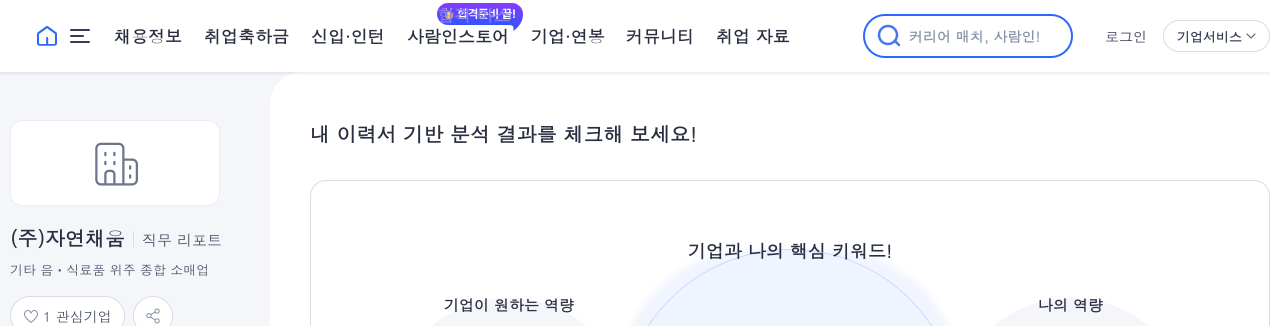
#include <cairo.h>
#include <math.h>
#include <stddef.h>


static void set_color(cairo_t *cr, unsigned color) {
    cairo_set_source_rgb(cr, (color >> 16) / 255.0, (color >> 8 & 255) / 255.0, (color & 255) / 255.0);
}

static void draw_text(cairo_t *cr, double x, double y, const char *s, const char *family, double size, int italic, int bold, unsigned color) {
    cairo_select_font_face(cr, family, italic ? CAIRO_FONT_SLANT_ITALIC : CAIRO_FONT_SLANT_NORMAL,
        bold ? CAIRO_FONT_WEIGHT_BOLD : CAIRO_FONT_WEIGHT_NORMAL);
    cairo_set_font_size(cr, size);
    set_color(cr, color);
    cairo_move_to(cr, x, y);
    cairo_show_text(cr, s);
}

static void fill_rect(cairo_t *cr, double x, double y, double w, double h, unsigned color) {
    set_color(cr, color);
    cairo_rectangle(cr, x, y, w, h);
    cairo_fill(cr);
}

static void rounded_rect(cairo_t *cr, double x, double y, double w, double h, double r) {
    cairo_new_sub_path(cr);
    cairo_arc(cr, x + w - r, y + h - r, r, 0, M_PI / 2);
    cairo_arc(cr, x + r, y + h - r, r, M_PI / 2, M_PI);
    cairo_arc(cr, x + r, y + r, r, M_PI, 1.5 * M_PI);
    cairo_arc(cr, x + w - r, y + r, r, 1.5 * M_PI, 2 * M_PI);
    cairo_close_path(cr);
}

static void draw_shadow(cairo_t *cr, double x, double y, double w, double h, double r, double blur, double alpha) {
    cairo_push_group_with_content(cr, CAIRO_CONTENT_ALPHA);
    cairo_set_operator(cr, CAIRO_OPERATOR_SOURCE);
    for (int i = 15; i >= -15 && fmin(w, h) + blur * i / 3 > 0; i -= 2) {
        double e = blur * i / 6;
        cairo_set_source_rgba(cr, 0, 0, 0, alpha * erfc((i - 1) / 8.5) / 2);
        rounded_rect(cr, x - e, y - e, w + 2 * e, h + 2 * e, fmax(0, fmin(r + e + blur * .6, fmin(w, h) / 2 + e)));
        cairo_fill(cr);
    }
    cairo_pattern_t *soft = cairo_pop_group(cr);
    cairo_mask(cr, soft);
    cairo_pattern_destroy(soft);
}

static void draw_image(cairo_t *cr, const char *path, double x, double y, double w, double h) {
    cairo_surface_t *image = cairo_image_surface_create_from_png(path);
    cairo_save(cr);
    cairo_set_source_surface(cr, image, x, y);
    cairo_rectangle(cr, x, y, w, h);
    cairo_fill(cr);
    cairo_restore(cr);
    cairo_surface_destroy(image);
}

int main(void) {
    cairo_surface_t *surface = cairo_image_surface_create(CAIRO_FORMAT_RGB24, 1270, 326);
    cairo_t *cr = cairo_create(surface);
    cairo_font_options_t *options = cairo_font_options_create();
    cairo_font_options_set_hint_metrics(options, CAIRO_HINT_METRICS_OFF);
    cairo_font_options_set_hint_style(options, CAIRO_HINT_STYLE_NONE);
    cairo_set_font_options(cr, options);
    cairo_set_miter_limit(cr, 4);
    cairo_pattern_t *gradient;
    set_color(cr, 0xFFFFFF);
    cairo_paint(cr);
    draw_image(cr, "assets/img1.png", 37, 26, 20, 20);
    draw_image(cr, "assets/img2.png", 70, 29, 20, 14);
    draw_text(cr, 114, 43, "채용정보", "Dotum", 17, 0, 1, 0x292E41);
    draw_text(cr, 204, 43, "취업축하금", "Dotum", 17, 0, 1, 0x292E41);
    draw_text(cr, 311, 43, "신입·인턴", "Dotum", 17, 0, 1, 0x292E41);
    draw_image(cr, "assets/img3.png", 437, 3, 86, 28);
    draw_text(cr, 437, 22, "합격 마스", "Dotum", 17, 0, 1, 0x8779F2);
    draw_text(cr, 407, 43, "사람인스토어", "Dotum", 17, 0, 1, 0x292E41);
    draw_text(cr, 531, 43, "기업·연봉", "Dotum", 17, 0, 1, 0x292E41);
    draw_text(cr, 626, 43, "커뮤니티", "Dotum", 17, 0, 1, 0x292E41);
    draw_text(cr, 716, 43, "취업 자료", "Dotum", 17, 0, 1, 0x292E41);
    rounded_rect(cr, 864, 15, 208, 42, 21);
    set_color(cr, 0x2D67FF);
    cairo_stroke(cr);
    cairo_arc(cr, 888, 35, 9, 0, 2 * M_PI);
    set_color(cr, 0x4876EF);
    cairo_set_line_width(cr, 2.5);
    cairo_stroke(cr);
    cairo_new_path(cr);
    cairo_move_to(cr, 899, 45);
    cairo_line_to(cr, 895, 41);
    cairo_set_line_cap(cr, CAIRO_LINE_CAP_ROUND);
    cairo_stroke(cr);
    draw_text(cr, 909, 42, "커리어 매치, 사람인!", "Dotum", 14, 0, 1, 0x8491A7);
    draw_text(cr, 1105, 42, "로그인", "Dotum", 14, 0, 0, 0x373F57);
    rounded_rect(cr, 1163.5, 20.5, 106, 31, 15.5);
    set_color(cr, 0xD7DCE5);
    cairo_set_line_width(cr, 1);
    cairo_set_line_cap(cr, CAIRO_LINE_CAP_BUTT);
    cairo_stroke(cr);
    draw_text(cr, 1177, 42, "기업서비스", "Dotum", 13, 0, 1, 0x373F57);
    cairo_new_path(cr);
    cairo_move_to(cr, 1247, 34);
    cairo_line_to(cr, 1251, 38);
    cairo_line_to(cr, 1255, 34);
    set_color(cr, 0x5C667B);
    cairo_set_line_width(cr, 1.2);
    cairo_set_line_cap(cr, CAIRO_LINE_CAP_ROUND);
    cairo_stroke(cr);
    fill_rect(cr, 0, 72, 302, 254, 0xF4F6FA);
    set_color(cr, 0xFFFFFF);
    cairo_new_path(cr);
    cairo_move_to(cr, 302, 72);
    cairo_line_to(cr, 1270, 72);
    cairo_line_to(cr, 1270, 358);
    cairo_line_to(cr, 270, 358);
    cairo_line_to(cr, 270, 104);
    cairo_curve_to(cr, 270, 86.5, 284.5, 72, 302, 72);
    cairo_close_path(cr);
    cairo_fill(cr);
    gradient = cairo_pattern_create_linear(640, 76, 640, 72);
    cairo_pattern_add_color_stop_rgba(gradient, 0, 0.216, 0.247, 0.341, 0);
    cairo_pattern_add_color_stop_rgba(gradient, 1, 0.216, 0.247, 0.341, 0.1);
    cairo_set_source(cr, gradient);
    cairo_pattern_destroy(gradient);
    cairo_rectangle(cr, 0, 72, 1270, 3);
    cairo_fill(cr);
    set_color(cr, 0xFFFFFF);
    rounded_rect(cr, 10.5, 120.5, 209, 85, 11.5);
    cairo_fill_preserve(cr);
    set_color(cr, 0xEAEDF4);
    cairo_set_line_width(cr, 1);
    cairo_set_line_cap(cr, CAIRO_LINE_CAP_BUTT);
    cairo_stroke(cr);
    draw_image(cr, "assets/img4.png", 95, 142, 43, 44);
    draw_text(cr, 10, 246, "(주)자연채움", "Dotum", 20, 0, 1, 0x292E41);
    fill_rect(cr, 133, 231, 1, 16, 0xD7DCE5);
    draw_text(cr, 142, 246, "직무 리포트", "Dotum", 15, 0, 0, 0x475067);
    draw_text(cr, 10, 275, "기타 음ㆍ식료품 위주 종합 소매업", "Dotum", 13, 0, 0, 0x475067);
    set_color(cr, 0xFFFFFF);
    rounded_rect(cr, 10.5, 296.5, 114, 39, 19.5);
    cairo_fill_preserve(cr);
    set_color(cr, 0xD7DCE5);
    cairo_stroke(cr);
    draw_image(cr, "assets/img5.png", 24, 310, 14, 13);
    draw_text(cr, 43, 322, "1 관심기업", "Dotum", 14, 0, 0, 0x475067);
    set_color(cr, 0xFFFFFF);
    cairo_new_path(cr);
    cairo_arc(cr, 153, 316, 19.5, 0, 2 * M_PI);
    cairo_fill_preserve(cr);
    set_color(cr, 0xD7DCE5);
    cairo_stroke(cr);
    draw_image(cr, "assets/img6.png", 146, 308, 14, 16);
    draw_text(cr, 310, 142, "내 이력서 기반 분석 결과를 체크해 보세요!", "Dotum", 20, 0, 1, 0x292E41);
    rounded_rect(cr, 310.5, 180.5, 959, 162, 15.5);
    set_color(cr, 0xD7DCE5);
    cairo_stroke(cr);
    set_color(cr, 0xF4F6FA);
    rounded_rect(cr, 388, 298, 242, 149, 121);
    cairo_fill(cr);
    rounded_rect(cr, 950, 298, 242, 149, 121);
    cairo_fill(cr);
    set_color(cr, 0x2D65F2);
    draw_shadow(cr, 620, 251, 340, 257, 170, 4, 0.07);
    set_color(cr, 0xF0F4FF);
    rounded_rect(cr, 620.5, 249.5, 339, 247, 169.5);
    cairo_fill_preserve(cr);
    set_color(cr, 0xCCDAFF);
    cairo_stroke(cr);
    draw_text(cr, 688, 258, "기업과 나의 핵심 키워드!", "Dotum", 18, 0, 1, 0x292E41);
    draw_text(cr, 444, 311, "기업이 원하는 역량", "Dotum", 15, 0, 1, 0x292E41);
    draw_text(cr, 1038, 311, "나의 역량", "Dotum", 15, 0, 1, 0x292E41);
    cairo_surface_write_to_png(surface, "output.png");
    cairo_font_options_destroy(options);
    cairo_destroy(cr);
    cairo_surface_destroy(surface);
    return 0;
}
